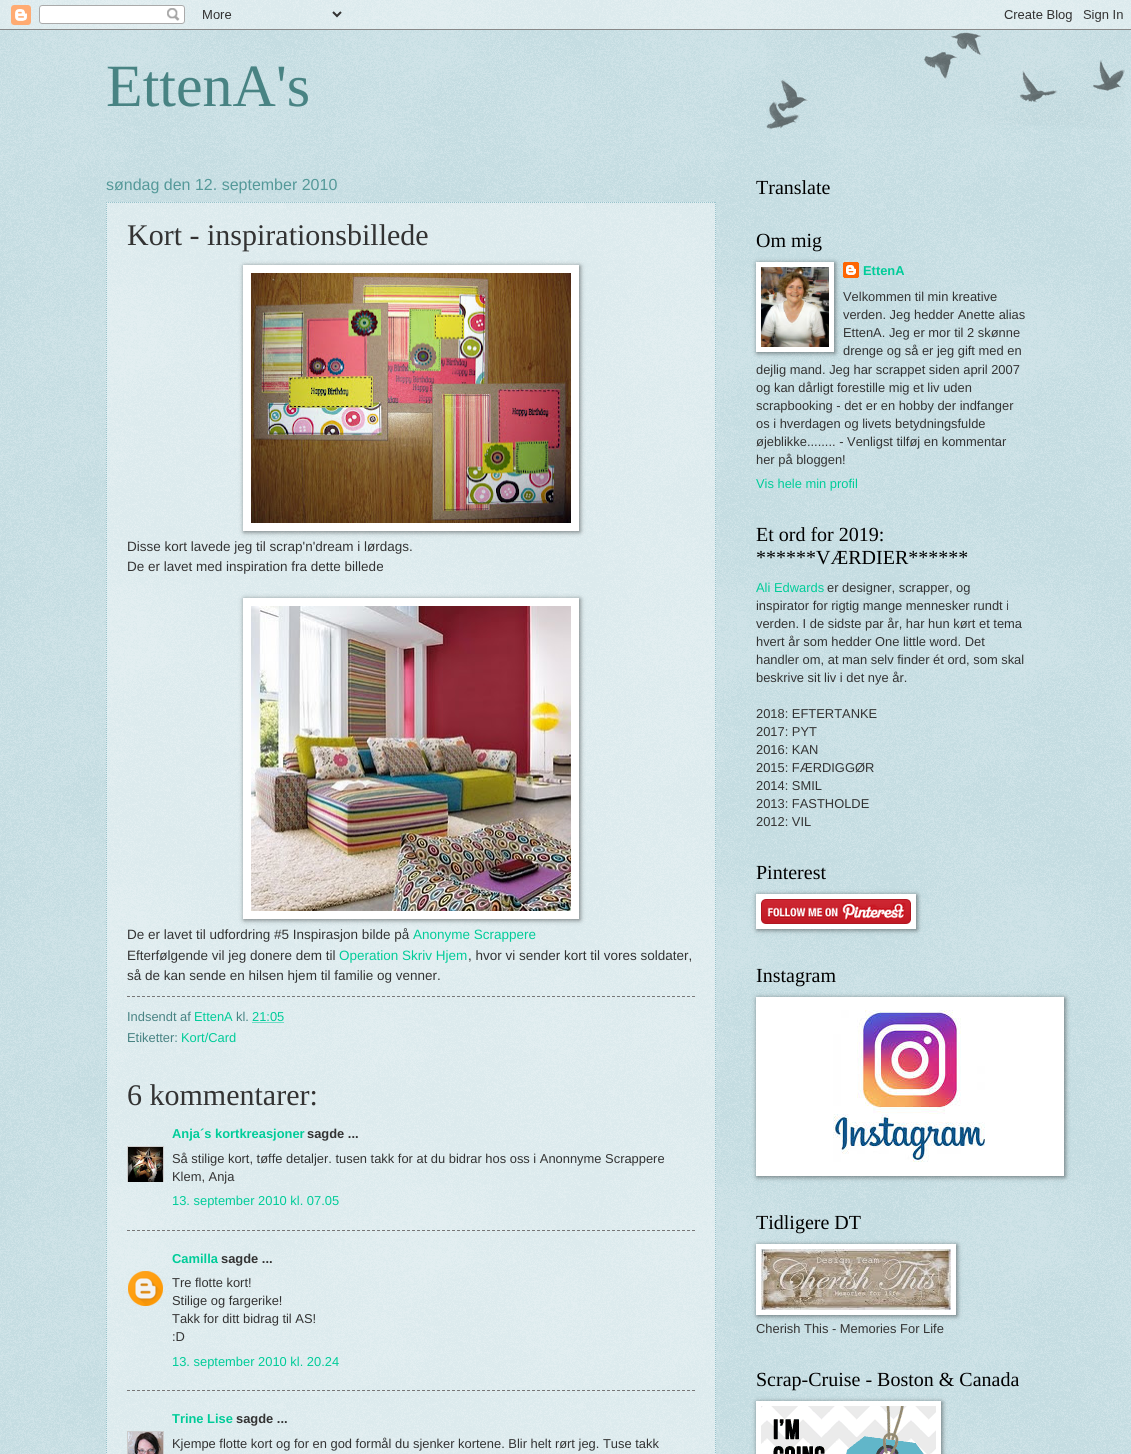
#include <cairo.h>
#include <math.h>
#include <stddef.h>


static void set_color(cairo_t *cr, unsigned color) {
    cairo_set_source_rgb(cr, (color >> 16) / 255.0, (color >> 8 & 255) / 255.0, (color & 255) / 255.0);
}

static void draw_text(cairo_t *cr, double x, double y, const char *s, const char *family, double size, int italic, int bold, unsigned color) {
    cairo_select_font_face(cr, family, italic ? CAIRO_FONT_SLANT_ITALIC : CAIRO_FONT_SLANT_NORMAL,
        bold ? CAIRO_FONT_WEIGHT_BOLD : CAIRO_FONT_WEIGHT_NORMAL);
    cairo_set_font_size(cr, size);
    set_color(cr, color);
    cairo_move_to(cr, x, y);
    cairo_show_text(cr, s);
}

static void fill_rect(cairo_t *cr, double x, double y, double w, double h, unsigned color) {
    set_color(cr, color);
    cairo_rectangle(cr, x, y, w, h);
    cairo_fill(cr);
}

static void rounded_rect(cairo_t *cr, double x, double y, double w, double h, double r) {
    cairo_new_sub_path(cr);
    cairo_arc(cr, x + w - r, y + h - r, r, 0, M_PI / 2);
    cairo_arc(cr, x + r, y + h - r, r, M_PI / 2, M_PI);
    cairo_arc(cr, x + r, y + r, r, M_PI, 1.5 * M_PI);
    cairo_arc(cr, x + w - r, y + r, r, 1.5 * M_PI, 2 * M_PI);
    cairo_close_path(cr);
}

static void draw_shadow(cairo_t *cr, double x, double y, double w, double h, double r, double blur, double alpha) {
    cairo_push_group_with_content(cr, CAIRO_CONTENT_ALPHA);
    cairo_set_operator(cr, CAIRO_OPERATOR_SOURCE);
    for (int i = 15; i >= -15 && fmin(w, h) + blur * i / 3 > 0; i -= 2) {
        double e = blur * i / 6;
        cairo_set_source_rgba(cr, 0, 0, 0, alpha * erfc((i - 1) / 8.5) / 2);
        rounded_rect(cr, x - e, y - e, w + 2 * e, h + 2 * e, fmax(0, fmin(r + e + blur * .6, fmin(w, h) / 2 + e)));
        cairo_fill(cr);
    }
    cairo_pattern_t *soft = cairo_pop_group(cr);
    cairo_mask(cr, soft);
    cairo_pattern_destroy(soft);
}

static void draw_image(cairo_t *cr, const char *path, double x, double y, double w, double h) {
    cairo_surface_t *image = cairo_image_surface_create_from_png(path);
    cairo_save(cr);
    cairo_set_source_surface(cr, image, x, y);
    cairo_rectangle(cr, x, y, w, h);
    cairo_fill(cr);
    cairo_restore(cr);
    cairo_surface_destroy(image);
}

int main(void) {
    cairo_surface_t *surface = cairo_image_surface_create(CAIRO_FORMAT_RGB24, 1131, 1454);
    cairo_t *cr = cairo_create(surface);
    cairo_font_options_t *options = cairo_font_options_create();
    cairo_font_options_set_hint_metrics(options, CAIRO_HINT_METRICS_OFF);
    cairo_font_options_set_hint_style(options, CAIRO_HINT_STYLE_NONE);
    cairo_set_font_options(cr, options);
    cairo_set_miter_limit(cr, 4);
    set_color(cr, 0x99C3CC);
    cairo_paint(cr);
    draw_image(cr, "assets/img1.png", 0, 0, 1131, 1454);
    draw_image(cr, "assets/img2.png", 0, 0, 1131, 30);
    draw_image(cr, "assets/img3.png", 766, 32, 359, 97);
    draw_text(cr, 106, 106, "EttenA's", "Liberation Serif", 60, 0, 0, 0x488383);
    draw_text(cr, 106, 190, "søndag den 12. september 2010", "Liberation Sans", 16, 0, 0, 0x559999);
    cairo_set_source_rgba(cr, 1, 1, 1, 0.4);
    cairo_rectangle(cr, 106, 202, 610, 1252);
    cairo_fill(cr);
    cairo_new_path(cr);
    cairo_move_to(cr, 106, 202.5);
    cairo_line_to(cr, 716, 202.5);
    set_color(cr, 0x99C3CC);
    cairo_set_line_width(cr, 1);
    cairo_set_dash(cr, (double[]){1, 1}, 2, 0);
    cairo_stroke(cr);
    cairo_new_path(cr);
    cairo_move_to(cr, 715.5, 202);
    cairo_line_to(cr, 715.5, 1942);
    cairo_stroke(cr);
    cairo_new_path(cr);
    cairo_move_to(cr, 106.5, 202);
    cairo_line_to(cr, 106.5, 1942);
    cairo_stroke(cr);
    draw_text(cr, 127, 245, "Kort - inspirationsbillede", "Liberation Serif", 30, 0, 0, 0x333333);
    set_color(cr, 0x000000);
    draw_shadow(cr, 244, 266, 336, 266, 0, 2.5, 0.5);
    fill_rect(cr, 243, 265, 336, 266, 0xFFFFFF);
    draw_image(cr, "assets/img4.png", 251, 273, 320, 250);
    draw_text(cr, 127, 551, "Disse kort lavede jeg til scrap'n'dream i lørdags.", "Liberation Sans", 13.5, 0, 0, 0x333333);
    draw_text(cr, 127, 571, "De er lavet med inspiration fra dette billede", "Liberation Sans", 13.5, 0, 0, 0x333333);
    set_color(cr, 0x000000);
    draw_shadow(cr, 244, 599, 336, 321, 0, 2.5, 0.5);
    fill_rect(cr, 243, 598, 336, 321, 0xFFFFFF);
    draw_image(cr, "assets/img5.png", 251, 606, 320, 305);
    draw_text(cr, 127, 939, "De er lavet til udfordring #5 Inspirasjon bilde på", "Liberation Sans", 13.5, 0, 0, 0x333333);
    draw_text(cr, 413, 939, "Anonyme Scrappere", "Liberation Sans", 13.5, 0, 0, 0x00CC99);
    draw_text(cr, 127, 960, "Efterfølgende vil jeg donere dem til", "Liberation Sans", 13.5, 0, 0, 0x333333);
    draw_text(cr, 339, 960, "Operation Skriv Hjem", "Liberation Sans", 13.5, 0, 0, 0x00CC99);
    draw_text(cr, 468, 960, ", hvor vi sender kort til vores soldater,", "Liberation Sans", 13.5, 0, 0, 0x333333);
    draw_text(cr, 127, 980, "så de kan sende en hilsen hjem til familie og venner.", "Liberation Sans", 13.5, 0, 0, 0x333333);
    cairo_new_path(cr);
    cairo_move_to(cr, 127, 996.5);
    cairo_line_to(cr, 695, 996.5);
    set_color(cr, 0x777777);
    cairo_set_dash(cr, (double[]){3, 2}, 2, 0);
    cairo_stroke(cr);
    draw_text(cr, 127, 1021, "Indsendt af", "Liberation Sans", 12.9, 0, 0, 0x488383);
    draw_text(cr, 194, 1021, "EttenA", "Liberation Sans", 12.9, 0, 0, 0x00CC99);
    draw_text(cr, 236, 1021, "kl.", "Liberation Sans", 12.9, 0, 0, 0x488383);
    draw_text(cr, 252, 1021, "21:05", "Liberation Sans", 12.9, 0, 0, 0x00CC99);
    cairo_new_path(cr);
    cairo_move_to(cr, 252.5, 1022.5);
    cairo_line_to(cr, 284.5, 1022.5);
    cairo_set_dash(cr, (double[]){1, 1}, 2, 0);
    cairo_stroke(cr);
    draw_text(cr, 127, 1042, "Etiketter:", "Liberation Sans", 12.9, 0, 0, 0x488383);
    draw_text(cr, 181, 1042, "Kort/Card", "Liberation Sans", 12.9, 0, 0, 0x00CC99);
    draw_text(cr, 127, 1105, "6 kommentarer:", "Liberation Serif", 30, 0, 0, 0x333333);
    draw_text(cr, 172, 1138, "Anja´s kortkreasjoner", "Liberation Sans", 12.9, 0, 1, 0x00CC99);
    draw_text(cr, 307, 1138, "sagde ...", "Liberation Sans", 12.9, 0, 1, 0x333333);
    cairo_save(cr);
    cairo_rectangle(cr, 127, 1146, 37, 36);
    cairo_clip(cr);
    cairo_rectangle(cr, 127.5, 1146.5, 36, 36);
    set_color(cr, 0xCCCCCC);
    cairo_set_dash(cr, NULL, 0, 0);
    cairo_stroke(cr);
    cairo_restore(cr);
    draw_image(cr, "assets/img6.png", 128, 1147, 35, 35);
    draw_text(cr, 172, 1163, "Så stilige kort, tøffe detaljer. tusen takk for at du bidrar hos oss i Anonnyme Scrappere", "Liberation Sans", 12.9, 0, 0, 0x333333);
    draw_text(cr, 172, 1181, "Klem, Anja", "Liberation Sans", 12.9, 0, 0, 0x333333);
    draw_text(cr, 172, 1205, "13. september 2010 kl. 07.05", "Liberation Sans", 12.9, 0, 0, 0x00CC99);
    cairo_new_path(cr);
    cairo_move_to(cr, 127, 1230.5);
    cairo_line_to(cr, 695, 1230.5);
    set_color(cr, 0x777777);
    cairo_set_dash(cr, (double[]){3, 2}, 2, 0);
    cairo_stroke(cr);
    draw_text(cr, 172, 1263, "Camilla", "Liberation Sans", 12.9, 0, 1, 0x00CC99);
    draw_text(cr, 221, 1263, "sagde ...", "Liberation Sans", 12.9, 0, 1, 0x333333);
    draw_image(cr, "assets/img7.png", 128, 1271, 35, 35);
    draw_text(cr, 172, 1287, "Tre flotte kort!", "Liberation Sans", 12.9, 0, 0, 0x333333);
    draw_text(cr, 172, 1305, "Stilige og fargerike!", "Liberation Sans", 12.9, 0, 0, 0x333333);
    draw_text(cr, 172, 1323, "Takk for ditt bidrag til AS!", "Liberation Sans", 12.9, 0, 0, 0x333333);
    draw_text(cr, 172, 1341, ":D", "Liberation Sans", 12.9, 0, 0, 0x333333);
    draw_text(cr, 172, 1366, "13. september 2010 kl. 20.24", "Liberation Sans", 12.9, 0, 0, 0x00CC99);
    cairo_new_path(cr);
    cairo_move_to(cr, 127, 1390.5);
    cairo_line_to(cr, 695, 1390.5);
    set_color(cr, 0x777777);
    cairo_stroke(cr);
    draw_text(cr, 172, 1423, "Trine Lise", "Liberation Sans", 12.9, 0, 1, 0x00CC99);
    draw_text(cr, 236, 1423, "sagde ...", "Liberation Sans", 12.9, 0, 1, 0x333333);
    cairo_rectangle(cr, 127.5, 1431.5, 36, 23);
    set_color(cr, 0xCCCCCC);
    cairo_set_dash(cr, NULL, 0, 0);
    cairo_stroke(cr);
    draw_image(cr, "assets/img8.png", 128, 1432, 35, 22);
    draw_text(cr, 172, 1448, "Kjempe flotte kort og for en god formål du sjenker kortene. Blir helt rørt jeg. Tuse takk", "Liberation Sans", 12.9, 0, 0, 0x333333);
    draw_text(cr, 756, 194, "Translate", "Liberation Serif", 20, 0, 0, 0x000000);
    draw_text(cr, 756, 247, "Om mig", "Liberation Serif", 20, 0, 0, 0x000000);
    draw_image(cr, "assets/img10.png", 843, 262, 16, 16);
    set_color(cr, 0x000000);
    draw_shadow(cr, 757, 263, 78, 90, 0, 2.5, 0.5);
    fill_rect(cr, 756, 262, 78, 90, 0xFFFFFF);
    draw_image(cr, "assets/img9.png", 761, 267, 68, 80);
    draw_text(cr, 863, 275, "EttenA", "Liberation Sans", 12.9, 0, 1, 0x00CC99);
    draw_text(cr, 843, 301, "Velkommen til min kreative", "Liberation Sans", 12.9, 0, 0, 0x333333);
    draw_text(cr, 843, 319, "verden. Jeg hedder Anette alias", "Liberation Sans", 12.9, 0, 0, 0x333333);
    draw_text(cr, 843, 337, "EttenA. Jeg er mor til 2 skønne", "Liberation Sans", 12.9, 0, 0, 0x333333);
    draw_text(cr, 843, 355, "drenge og så er jeg gift med en", "Liberation Sans", 12.9, 0, 0, 0x333333);
    draw_text(cr, 756, 374, "dejlig mand. Jeg har scrappet siden april 2007", "Liberation Sans", 12.9, 0, 0, 0x333333);
    draw_text(cr, 756, 392, "og kan dårligt forestille mig et liv uden", "Liberation Sans", 12.9, 0, 0, 0x333333);
    draw_text(cr, 756, 410, "scrapbooking - det er en hobby der indfanger", "Liberation Sans", 12.9, 0, 0, 0x333333);
    draw_text(cr, 756, 428, "os i hverdagen og livets betydningsfulde", "Liberation Sans", 12.9, 0, 0, 0x333333);
    draw_text(cr, 756, 446, "øjeblikke........ - Venligst tilføj en kommentar", "Liberation Sans", 12.9, 0, 0, 0x333333);
    draw_text(cr, 756, 464, "her på bloggen!", "Liberation Sans", 12.9, 0, 0, 0x333333);
    draw_text(cr, 756, 488, "Vis hele min profil", "Liberation Sans", 12.9, 0, 0, 0x00CC99);
    draw_text(cr, 756, 541, "Et ord for 2019:", "Liberation Serif", 20, 0, 0, 0x000000);
    draw_text(cr, 756, 564, "******VÆRDIER******", "Liberation Serif", 20, 0, 0, 0x000000);
    draw_text(cr, 756, 592, "Ali Edwards", "Liberation Sans", 12.9, 0, 0, 0x00CC99);
    draw_text(cr, 827, 592, "er designer, scrapper, og", "Liberation Sans", 12.9, 0, 0, 0x333333);
    draw_text(cr, 756, 610, "inspirator for rigtig mange mennesker rundt i", "Liberation Sans", 12.9, 0, 0, 0x333333);
    draw_text(cr, 756, 628, "verden. I de sidste par år, har hun kørt et tema", "Liberation Sans", 12.9, 0, 0, 0x333333);
    draw_text(cr, 756, 646, "hvert år som hedder One little word. Det", "Liberation Sans", 12.9, 0, 0, 0x333333);
    draw_text(cr, 756, 664, "handler om, at man selv finder ét ord, som skal", "Liberation Sans", 12.9, 0, 0, 0x333333);
    draw_text(cr, 756, 682, "beskrive sit liv i det nye år.", "Liberation Sans", 12.9, 0, 0, 0x333333);
    draw_text(cr, 756, 718, "2018: EFTERTANKE", "Liberation Sans", 12.9, 0, 0, 0x333333);
    draw_text(cr, 756, 736, "2017: PYT", "Liberation Sans", 12.9, 0, 0, 0x333333);
    draw_text(cr, 756, 754, "2016: KAN", "Liberation Sans", 12.9, 0, 0, 0x333333);
    draw_text(cr, 756, 772, "2015: FÆRDIGGØR", "Liberation Sans", 12.9, 0, 0, 0x333333);
    draw_text(cr, 756, 790, "2014: SMIL", "Liberation Sans", 12.9, 0, 0, 0x333333);
    draw_text(cr, 756, 808, "2013: FASTHOLDE", "Liberation Sans", 12.9, 0, 0, 0x333333);
    draw_text(cr, 756, 826, "2012: VIL", "Liberation Sans", 12.9, 0, 0, 0x333333);
    draw_text(cr, 756, 879, "Pinterest", "Liberation Serif", 20, 0, 0, 0x000000);
    set_color(cr, 0x000000);
    draw_shadow(cr, 757, 895, 160, 35, 0, 2.5, 0.5);
    fill_rect(cr, 756, 894, 160, 35, 0xFFFFFF);
    draw_image(cr, "assets/img11.png", 761, 899, 150, 25);
    draw_text(cr, 756, 982, "Instagram", "Liberation Serif", 20, 0, 0, 0x000000);
    set_color(cr, 0x000000);
    draw_shadow(cr, 757, 998, 308, 179, 0, 2.5, 0.5);
    fill_rect(cr, 756, 997, 308, 179, 0xFFFFFF);
    draw_image(cr, "assets/img12.png", 833, 1010, 152, 152);
    draw_text(cr, 756, 1229, "Tidligere DT", "Liberation Serif", 20, 0, 0, 0x000000);
    set_color(cr, 0x000000);
    draw_shadow(cr, 757, 1245, 200, 71, 0, 2.5, 0.5);
    fill_rect(cr, 756, 1244, 200, 71, 0xFFFFFF);
    draw_image(cr, "assets/img13.png", 761, 1249, 190, 61);
    draw_text(cr, 756, 1333, "Cherish This - Memories For Life", "Liberation Sans", 12.9, 0, 0, 0x333333);
    draw_text(cr, 756, 1386, "Scrap-Cruise - Boston & Canada", "Liberation Serif", 20, 0, 0, 0x000000);
    set_color(cr, 0x000000);
    draw_shadow(cr, 757, 1402, 185, 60, 0, 2.5, 0.5);
    fill_rect(cr, 756, 1401, 185, 53, 0xFFFFFF);
    draw_image(cr, "assets/img14.png", 761, 1406, 175, 48);
    cairo_surface_write_to_png(surface, "output.png");
    cairo_font_options_destroy(options);
    cairo_destroy(cr);
    cairo_surface_destroy(surface);
    return 0;
}
